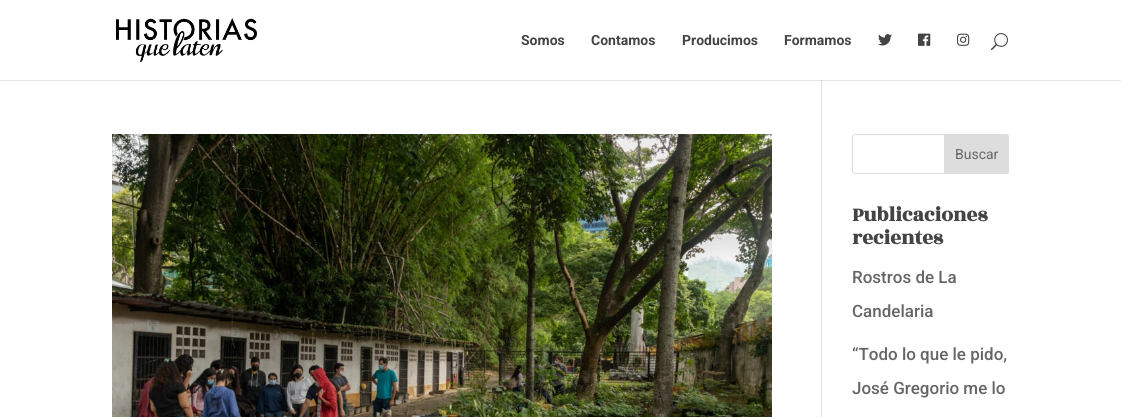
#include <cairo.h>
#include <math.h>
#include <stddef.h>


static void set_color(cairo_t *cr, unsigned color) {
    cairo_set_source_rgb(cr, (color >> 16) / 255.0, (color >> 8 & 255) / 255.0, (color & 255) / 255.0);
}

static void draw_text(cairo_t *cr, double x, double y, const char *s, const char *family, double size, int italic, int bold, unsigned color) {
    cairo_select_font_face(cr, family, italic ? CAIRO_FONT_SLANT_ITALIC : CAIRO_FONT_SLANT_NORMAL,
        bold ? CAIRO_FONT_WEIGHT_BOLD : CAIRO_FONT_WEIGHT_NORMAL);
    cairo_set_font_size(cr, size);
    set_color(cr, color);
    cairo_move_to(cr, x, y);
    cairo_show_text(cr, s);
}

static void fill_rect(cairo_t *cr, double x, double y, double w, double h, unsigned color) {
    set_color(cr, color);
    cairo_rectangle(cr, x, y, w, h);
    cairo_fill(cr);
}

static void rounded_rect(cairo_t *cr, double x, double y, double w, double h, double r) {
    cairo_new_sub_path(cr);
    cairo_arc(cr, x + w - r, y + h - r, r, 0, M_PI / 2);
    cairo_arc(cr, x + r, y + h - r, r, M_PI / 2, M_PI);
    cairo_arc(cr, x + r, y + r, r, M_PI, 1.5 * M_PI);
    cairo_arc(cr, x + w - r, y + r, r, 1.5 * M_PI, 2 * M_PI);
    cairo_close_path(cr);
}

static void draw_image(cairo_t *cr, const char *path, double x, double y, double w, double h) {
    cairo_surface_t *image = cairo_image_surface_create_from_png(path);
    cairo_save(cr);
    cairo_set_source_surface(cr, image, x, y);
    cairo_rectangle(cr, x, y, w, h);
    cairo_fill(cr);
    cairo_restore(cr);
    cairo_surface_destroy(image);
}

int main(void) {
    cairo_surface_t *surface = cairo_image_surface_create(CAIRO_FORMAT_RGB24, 1121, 417);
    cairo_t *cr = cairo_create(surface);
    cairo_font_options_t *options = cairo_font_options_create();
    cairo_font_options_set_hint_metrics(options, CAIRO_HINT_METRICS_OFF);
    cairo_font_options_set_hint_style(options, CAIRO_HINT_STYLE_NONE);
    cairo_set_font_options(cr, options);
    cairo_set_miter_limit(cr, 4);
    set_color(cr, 0xFFFFFF);
    cairo_paint(cr);
    fill_rect(cr, 0, 80, 1121, 1, 0xE6E6E6);
    fill_rect(cr, 821, 76, 1, 341, 0xE2E2E2);
    fill_rect(cr, 821, 76, 1, 4, 0xFFFFFF);
    draw_image(cr, "assets/img1.png", 116, 18, 141, 44);
    draw_text(cr, 521, 45, "Somos", "Roboto", 14, 0, 1, 0x444444);
    draw_text(cr, 591, 45, "Contamos", "Roboto", 14, 0, 1, 0x444444);
    draw_text(cr, 682, 45, "Producimos", "Roboto", 14, 0, 1, 0x444444);
    draw_text(cr, 784, 45, "Formamos", "Roboto", 14, 0, 1, 0x444444);
    draw_image(cr, "assets/img2.png", 878, 34, 14, 12);
    draw_image(cr, "assets/img3.png", 918, 33, 13, 13);
    draw_image(cr, "assets/img4.png", 957, 33, 13, 13);
    draw_image(cr, "assets/img5.png", 991, 33, 17, 18);
    fill_rect(cr, 821, 80, 1, 1, 0xCBCBCB);
    draw_image(cr, "assets/img6.png", 112, 134, 660, 283);
    rounded_rect(cr, 852.5, 134.5, 156, 39, 2.5);
    set_color(cr, 0xDDDDDD);
    cairo_set_line_width(cr, 1);
    cairo_stroke(cr);
    cairo_new_path(cr);
    cairo_move_to(cr, 944.5, 134.5);
    cairo_line_to(cr, 1006, 134.5);
    cairo_curve_to(cr, 1007.5, 134.5, 1008.5, 135.5, 1008.5, 137);
    cairo_line_to(cr, 1008.5, 171);
    cairo_curve_to(cr, 1008.5, 172.5, 1007.5, 173.5, 1006, 173.5);
    cairo_line_to(cr, 944.5, 173.5);
    cairo_close_path(cr);
    cairo_fill_preserve(cr);
    cairo_stroke(cr);
    draw_text(cr, 955, 159, "Buscar", "Roboto", 14, 0, 0, 0x666666);
    draw_text(cr, 852, 221, "Publicaciones", "Rozha One", 21, 0, 1, 0x444444);
    draw_text(cr, 852, 244, "recientes", "Rozha One", 21, 0, 1, 0x444444);
    draw_text(cr, 852, 283, "Rostros de La", "Roboto Medium", 17, 0, 0, 0x666666);
    draw_text(cr, 852, 317, "Candelaria", "Roboto Medium", 17, 0, 0, 0x666666);
    draw_text(cr, 852, 360, "“Todo lo que le pido,", "Roboto Medium", 17, 0, 0, 0x666666);
    draw_text(cr, 852, 394, "José Gregorio me lo", "Roboto Medium", 17, 0, 0, 0x666666);
    cairo_surface_write_to_png(surface, "output.png");
    cairo_font_options_destroy(options);
    cairo_destroy(cr);
    cairo_surface_destroy(surface);
    return 0;
}
